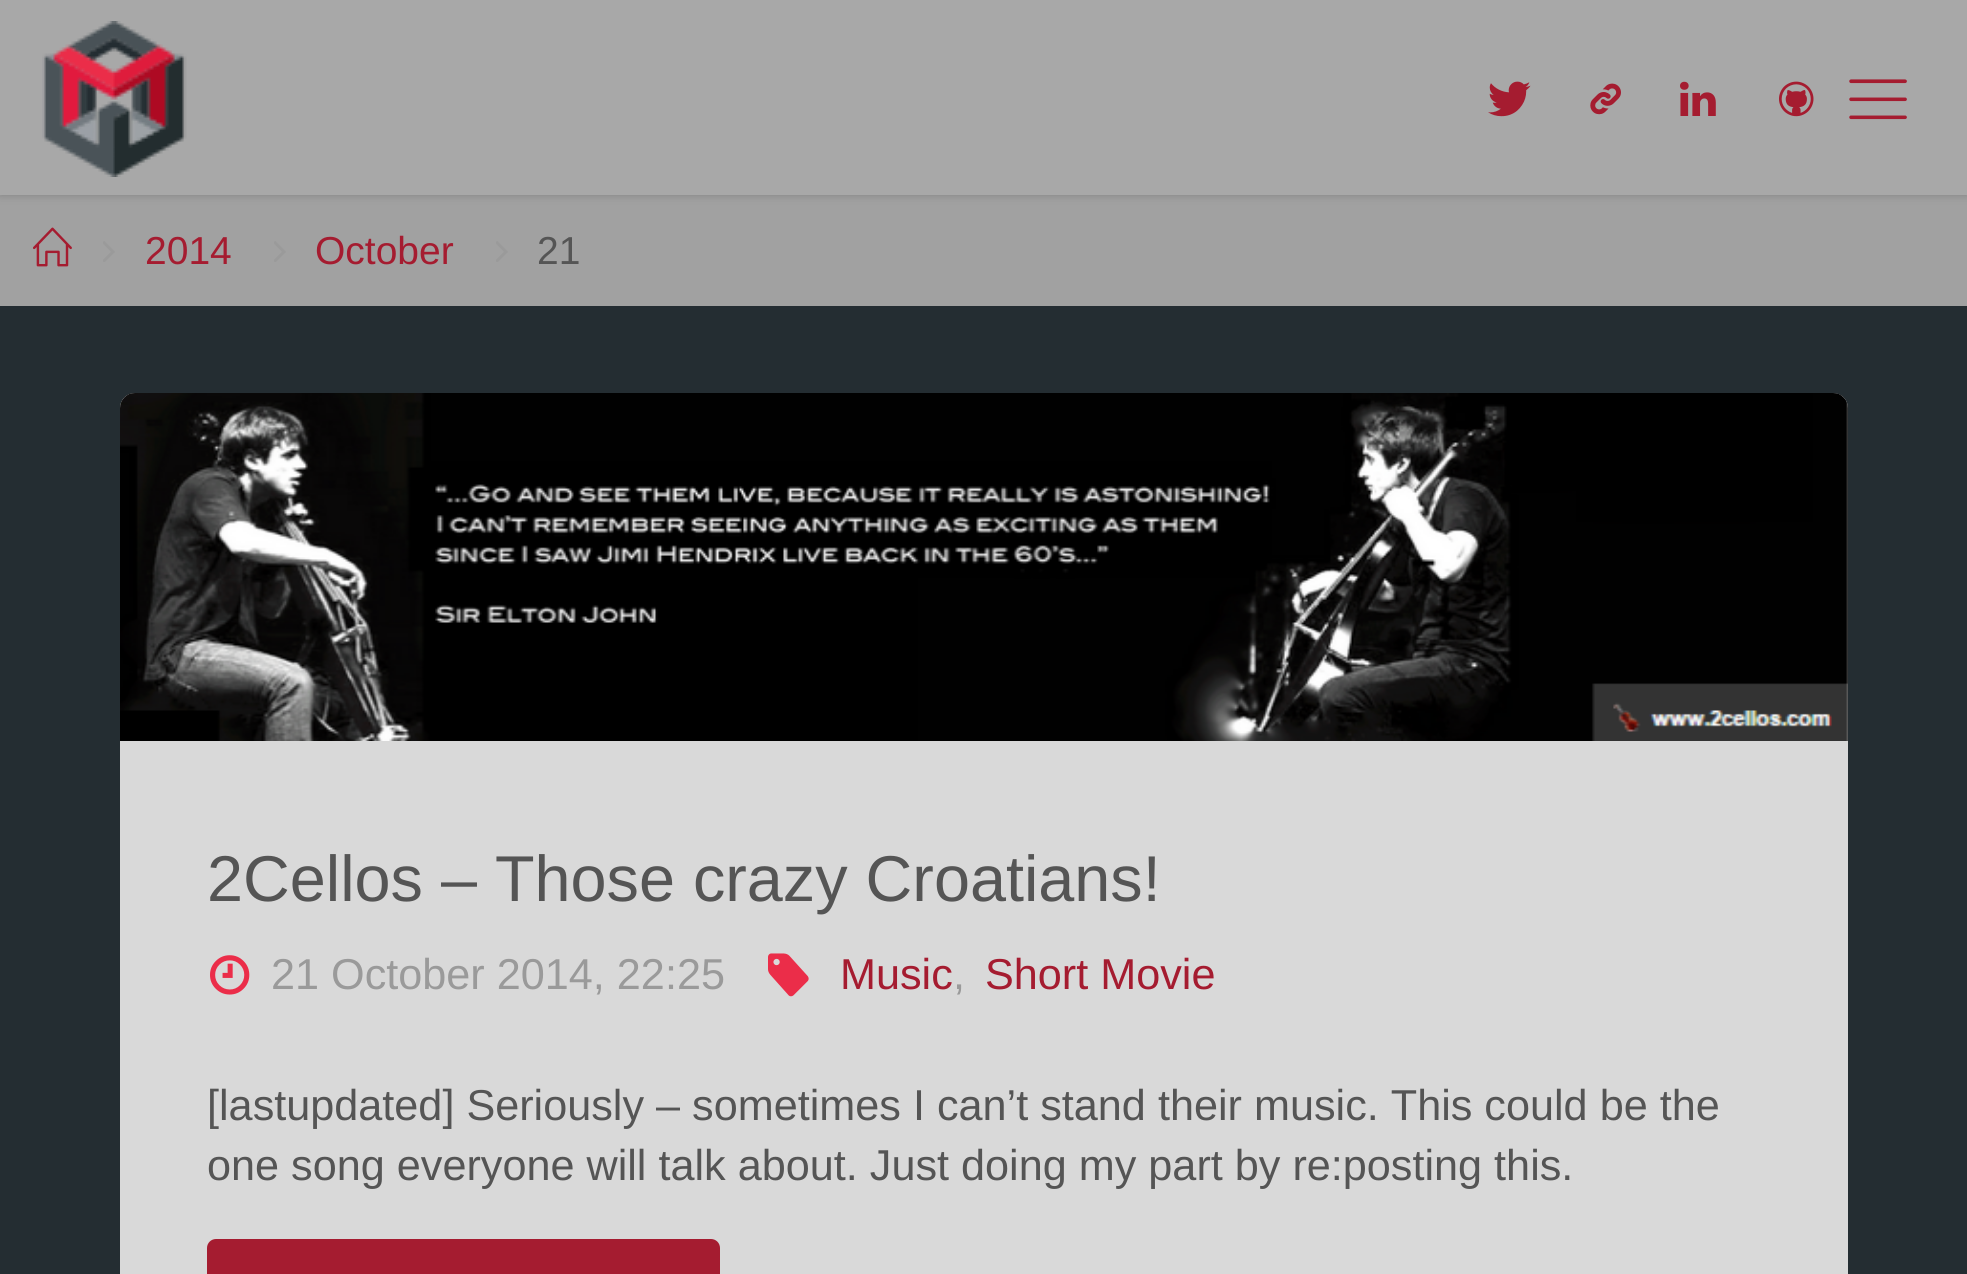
#include <cairo.h>
#include <math.h>
#include <stddef.h>


static void set_color(cairo_t *cr, unsigned color) {
    cairo_set_source_rgb(cr, (color >> 16) / 255.0, (color >> 8 & 255) / 255.0, (color & 255) / 255.0);
}

static void draw_text(cairo_t *cr, double x, double y, const char *s, const char *family, double size, int italic, int bold, unsigned color) {
    cairo_select_font_face(cr, family, italic ? CAIRO_FONT_SLANT_ITALIC : CAIRO_FONT_SLANT_NORMAL,
        bold ? CAIRO_FONT_WEIGHT_BOLD : CAIRO_FONT_WEIGHT_NORMAL);
    cairo_set_font_size(cr, size);
    set_color(cr, color);
    cairo_move_to(cr, x, y);
    cairo_show_text(cr, s);
}

static void fill_rect(cairo_t *cr, double x, double y, double w, double h, unsigned color) {
    set_color(cr, color);
    cairo_rectangle(cr, x, y, w, h);
    cairo_fill(cr);
}

static void rounded_rect(cairo_t *cr, double x, double y, double w, double h, double r) {
    cairo_new_sub_path(cr);
    cairo_arc(cr, x + w - r, y + h - r, r, 0, M_PI / 2);
    cairo_arc(cr, x + r, y + h - r, r, M_PI / 2, M_PI);
    cairo_arc(cr, x + r, y + r, r, M_PI, 1.5 * M_PI);
    cairo_arc(cr, x + w - r, y + r, r, 1.5 * M_PI, 2 * M_PI);
    cairo_close_path(cr);
}

static void draw_shadow(cairo_t *cr, double x, double y, double w, double h, double r, double blur, double alpha) {
    cairo_push_group_with_content(cr, CAIRO_CONTENT_ALPHA);
    cairo_set_operator(cr, CAIRO_OPERATOR_SOURCE);
    for (int i = 15; i >= -15 && fmin(w, h) + blur * i / 3 > 0; i -= 2) {
        double e = blur * i / 6;
        cairo_set_source_rgba(cr, 0, 0, 0, alpha * erfc((i - 1) / 8.5) / 2);
        rounded_rect(cr, x - e, y - e, w + 2 * e, h + 2 * e, fmax(0, fmin(r + e + blur * .6, fmin(w, h) / 2 + e)));
        cairo_fill(cr);
    }
    cairo_pattern_t *soft = cairo_pop_group(cr);
    cairo_mask(cr, soft);
    cairo_pattern_destroy(soft);
}

static void draw_image(cairo_t *cr, const char *path, double x, double y, double w, double h) {
    cairo_surface_t *image = cairo_image_surface_create_from_png(path);
    cairo_save(cr);
    cairo_set_source_surface(cr, image, x, y);
    cairo_rectangle(cr, x, y, w, h);
    cairo_fill(cr);
    cairo_restore(cr);
    cairo_surface_destroy(image);
}

int main(void) {
    cairo_surface_t *surface = cairo_image_surface_create(CAIRO_FORMAT_RGB24, 1967, 1274);
    cairo_t *cr = cairo_create(surface);
    cairo_font_options_t *options = cairo_font_options_create();
    cairo_font_options_set_hint_metrics(options, CAIRO_HINT_METRICS_OFF);
    cairo_font_options_set_hint_style(options, CAIRO_HINT_STYLE_NONE);
    cairo_set_font_options(cr, options);
    cairo_set_miter_limit(cr, 4);
    set_color(cr, 0x242D32);
    cairo_paint(cr);
    fill_rect(cr, 0, 195, 1967, 111, 0xA1A1A1);
    set_color(cr, 0x000000);
    draw_shadow(cr, 0, 0, 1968, 195, 0, 4.5, 0.2);
    fill_rect(cr, 0, 0, 1967, 195, 0xA8A8A8);
    draw_image(cr, "assets/img1.png", 42, 21, 145, 156);
    draw_image(cr, "assets/img2.png", 1488, 81, 43, 36);
    draw_image(cr, "assets/img3.png", 1590, 83, 31, 32);
    draw_image(cr, "assets/img4.png", 1680, 81, 36, 35);
    draw_image(cr, "assets/img5.png", 1779, 81, 35, 36);
    draw_image(cr, "assets/img6.png", 1849, 79, 58, 41);
    draw_image(cr, "assets/img7.png", 33, 227, 39, 40);
    draw_image(cr, "assets/img8.png", 103, 241, 12, 21);
    draw_text(cr, 145, 264, "2014", "Liberation Sans", 39, 0, 0, 0xA51C30);
    draw_image(cr, "assets/img8.png", 274, 241, 12, 21);
    draw_text(cr, 315, 264, "October", "Liberation Sans", 39, 0, 0, 0xA51C30);
    draw_image(cr, "assets/img8.png", 496, 241, 12, 21);
    draw_text(cr, 537, 264, "21", "Liberation Sans", 39, 0, 0, 0x555555);
    set_color(cr, 0xD9D9D9);
    rounded_rect(cr, 120, 393, 1728, 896, 15);
    cairo_fill(cr);
    cairo_set_source_rgba(cr, 0.333, 0.333, 0.333, 0.15);
    cairo_new_path(cr);
    cairo_move_to(cr, 135, 393);
    cairo_line_to(cr, 1833, 393);
    cairo_curve_to(cr, 1841.5, 393, 1848, 399.5, 1848, 408);
    cairo_line_to(cr, 1848, 741);
    cairo_line_to(cr, 120, 741);
    cairo_line_to(cr, 120, 408);
    cairo_curve_to(cr, 120, 399.5, 126.5, 393, 135, 393);
    cairo_close_path(cr);
    cairo_fill(cr);
    draw_image(cr, "assets/img9.png", 120, 393, 1728, 348);
    draw_text(cr, 207, 901, "2Cellos – Those crazy Croatians!", "Liberation Sans", 64.75, 0, 0, 0x555555);
    draw_image(cr, "assets/img10.png", 210, 955, 40, 40);
    draw_text(cr, 271, 989, "21 October 2014, 22:25", "Liberation Sans", 43.2, 0, 0, 0x9A9A9A);
    draw_image(cr, "assets/img11.png", 768, 953, 41, 44);
    draw_text(cr, 840, 989, "Music", "Liberation Sans", 43.2, 0, 0, 0xA51C30);
    draw_text(cr, 953, 989, ",", "Liberation Sans", 43.2, 0, 0, 0x9A9A9A);
    draw_text(cr, 985, 989, "Short Movie", "Liberation Sans", 43.2, 0, 0, 0xA51C30);
    draw_text(cr, 207, 1120, "[lastupdated] Seriously – sometimes I can’t stand their music. This could be the", "Liberation Sans", 43.2, 0, 0, 0x555555);
    draw_text(cr, 207, 1180, "one song everyone will talk about. Just doing my part by re:posting this.", "Liberation Sans", 43.2, 0, 0, 0x555555);
    set_color(cr, 0xA51C30);
    rounded_rect(cr, 207, 1239, 513, 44, 9);
    cairo_fill(cr);
    cairo_surface_write_to_png(surface, "output.png");
    cairo_font_options_destroy(options);
    cairo_destroy(cr);
    cairo_surface_destroy(surface);
    return 0;
}
